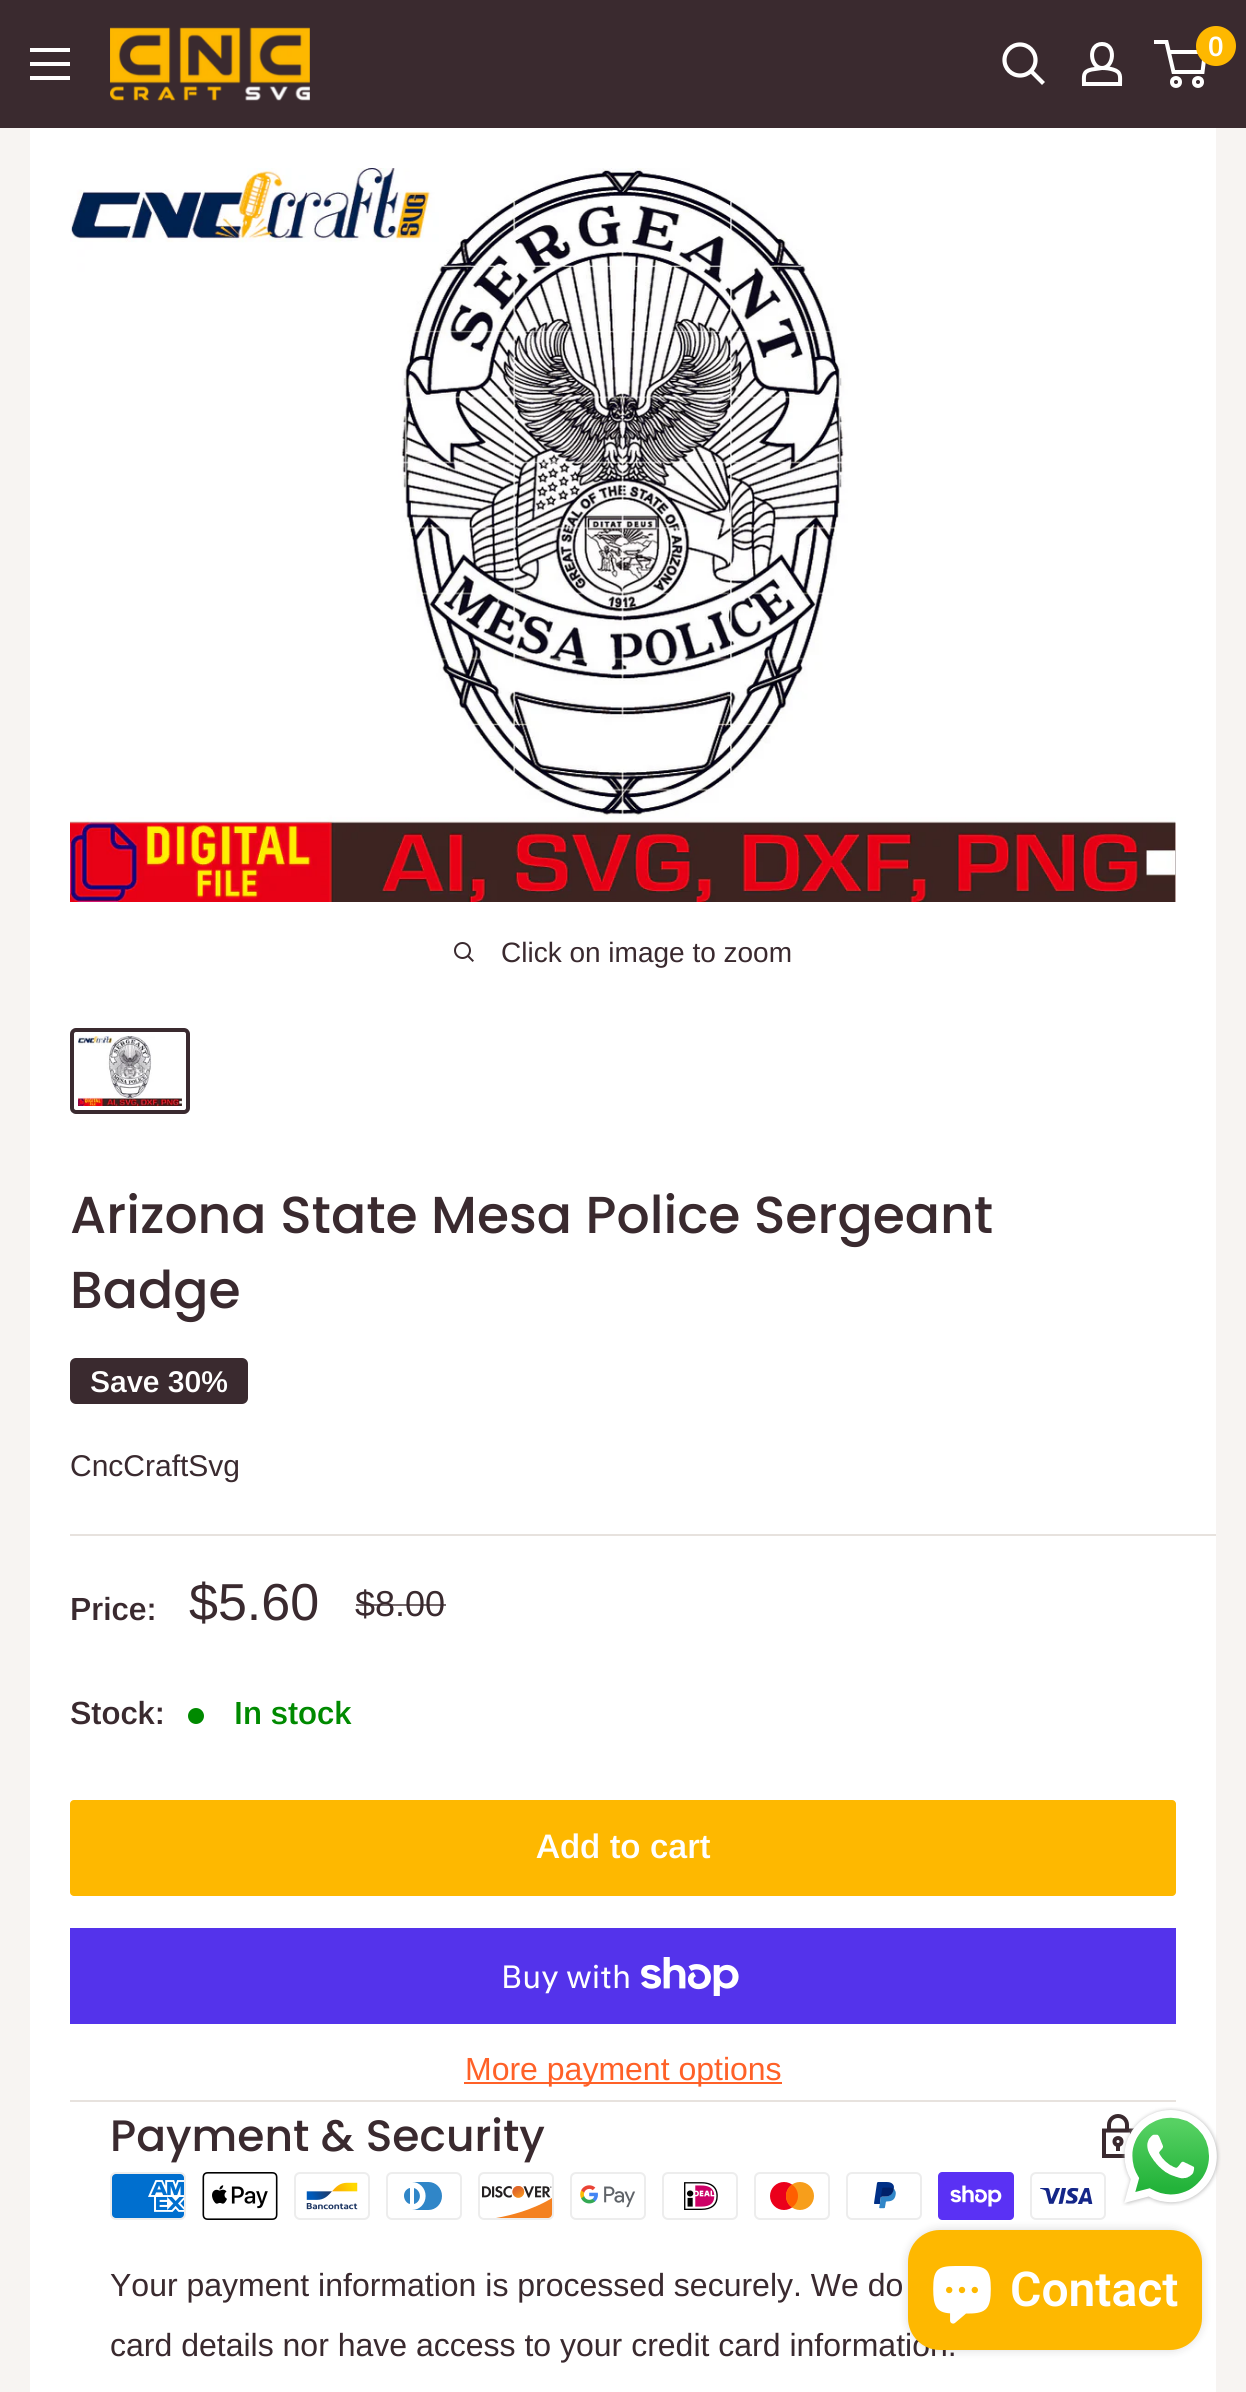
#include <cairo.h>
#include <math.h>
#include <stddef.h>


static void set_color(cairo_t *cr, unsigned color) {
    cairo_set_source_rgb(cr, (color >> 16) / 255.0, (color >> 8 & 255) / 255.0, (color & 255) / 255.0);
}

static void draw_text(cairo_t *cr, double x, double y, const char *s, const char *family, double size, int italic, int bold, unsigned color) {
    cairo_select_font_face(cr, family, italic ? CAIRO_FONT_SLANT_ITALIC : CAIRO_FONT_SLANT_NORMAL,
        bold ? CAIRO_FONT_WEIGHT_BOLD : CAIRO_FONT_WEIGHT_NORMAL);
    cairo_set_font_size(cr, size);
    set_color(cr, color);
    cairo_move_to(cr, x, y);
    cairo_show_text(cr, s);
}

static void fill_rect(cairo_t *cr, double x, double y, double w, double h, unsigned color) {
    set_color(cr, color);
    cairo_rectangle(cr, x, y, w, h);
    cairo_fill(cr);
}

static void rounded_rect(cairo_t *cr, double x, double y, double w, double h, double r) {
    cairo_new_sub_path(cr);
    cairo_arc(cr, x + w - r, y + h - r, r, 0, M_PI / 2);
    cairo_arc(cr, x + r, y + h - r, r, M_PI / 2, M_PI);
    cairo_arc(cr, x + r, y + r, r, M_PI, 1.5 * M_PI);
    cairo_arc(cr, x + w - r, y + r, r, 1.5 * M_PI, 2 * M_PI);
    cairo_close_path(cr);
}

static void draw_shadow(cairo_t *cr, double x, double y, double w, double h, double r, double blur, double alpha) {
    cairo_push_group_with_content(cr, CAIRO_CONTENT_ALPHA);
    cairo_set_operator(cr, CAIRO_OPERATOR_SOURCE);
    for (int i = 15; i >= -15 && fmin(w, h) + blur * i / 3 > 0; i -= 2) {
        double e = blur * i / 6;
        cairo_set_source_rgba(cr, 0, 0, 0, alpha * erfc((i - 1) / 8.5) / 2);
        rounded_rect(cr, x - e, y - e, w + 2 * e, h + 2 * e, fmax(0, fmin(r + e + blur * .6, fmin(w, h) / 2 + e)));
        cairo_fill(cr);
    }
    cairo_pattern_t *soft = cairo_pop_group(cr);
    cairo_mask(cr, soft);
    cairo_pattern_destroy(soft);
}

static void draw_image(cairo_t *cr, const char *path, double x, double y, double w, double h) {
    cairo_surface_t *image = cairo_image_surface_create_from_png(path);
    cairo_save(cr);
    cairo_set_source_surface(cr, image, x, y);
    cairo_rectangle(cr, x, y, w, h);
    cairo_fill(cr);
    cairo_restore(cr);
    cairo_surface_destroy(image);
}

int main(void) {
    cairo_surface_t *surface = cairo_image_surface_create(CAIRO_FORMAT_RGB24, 1246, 2392);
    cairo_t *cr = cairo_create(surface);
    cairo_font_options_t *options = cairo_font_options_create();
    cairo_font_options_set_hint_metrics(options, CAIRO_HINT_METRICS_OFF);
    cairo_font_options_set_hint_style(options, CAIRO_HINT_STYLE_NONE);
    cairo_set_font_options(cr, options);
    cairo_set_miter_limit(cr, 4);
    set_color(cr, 0xF7F4F2);
    cairo_paint(cr);
    fill_rect(cr, 0, 0, 1246, 128, 0x3A2A2F);
    set_color(cr, 0xFFFFFF);
    cairo_set_fill_rule(cr, CAIRO_FILL_RULE_EVEN_ODD);
    cairo_new_path(cr);
    cairo_move_to(cr, 30, 76);
    cairo_line_to(cr, 70, 76);
    cairo_line_to(cr, 70, 80);
    cairo_line_to(cr, 30, 80);
    cairo_close_path(cr);
    cairo_move_to(cr, 30, 48);
    cairo_line_to(cr, 70, 48);
    cairo_line_to(cr, 70, 52);
    cairo_line_to(cr, 30, 52);
    cairo_close_path(cr);
    cairo_move_to(cr, 30, 62);
    cairo_line_to(cr, 70, 62);
    cairo_line_to(cr, 70, 66);
    cairo_line_to(cr, 30, 66);
    cairo_close_path(cr);
    cairo_fill(cr);
    draw_image(cr, "assets/img1.png", 110, 27, 200, 74);
    cairo_new_path(cr);
    cairo_move_to(cr, 1042, 82);
    cairo_line_to(cr, 1031.5, 71.5);
    cairo_set_line_width(cr, 4.2);
    cairo_set_line_cap(cr, CAIRO_LINE_CAP_SQUARE);
    cairo_stroke(cr);
    cairo_arc(cr, 1020, 60, 15.5, 0, 2 * M_PI);
    cairo_set_line_cap(cr, CAIRO_LINE_CAP_BUTT);
    cairo_stroke(cr);
    cairo_new_path(cr);
    cairo_move_to(cr, 1102, 68);
    cairo_curve_to(cr, 1106, 68, 1109.5, 68.5, 1113, 69.5);
    cairo_curve_to(cr, 1121.5, 72, 1120, 76.5, 1120, 84);
    cairo_line_to(cr, 1084, 84);
    cairo_curve_to(cr, 1084, 76, 1082.5, 71.5, 1091.5, 69.5);
    cairo_close_path(cr);
    cairo_move_to(cr, 1102, 68);
    cairo_curve_to(cr, 1090, 68, 1087.5, 44, 1102, 44);
    cairo_curve_to(cr, 1116.5, 44, 1114, 68, 1102, 68);
    cairo_close_path(cr);
    cairo_set_line_width(cr, 4);
    cairo_stroke(cr);
    cairo_arc(cr, 1176, 82, 4, 0, 2 * M_PI);
    cairo_stroke(cr);
    cairo_arc(cr, 1198, 82, 4, 0, 2 * M_PI);
    cairo_stroke(cr);
    cairo_new_path(cr);
    cairo_move_to(cr, 1168.5, 52);
    cairo_line_to(cr, 1205, 52);
    cairo_line_to(cr, 1202.5, 72);
    cairo_line_to(cr, 1173.5, 72);
    cairo_line_to(cr, 1166.5, 42);
    cairo_line_to(cr, 1154, 42);
    cairo_stroke(cr);
    set_color(cr, 0xFEB800);
    cairo_arc(cr, 1216, 46, 20, 0, 2 * M_PI);
    cairo_fill(cr);
    draw_text(cr, 1208, 56, "0", "Arimo SemiBold", 28, 0, 0, 0xFFFFFF);
    fill_rect(cr, 30, 128, 1186, 2264, 0xFFFFFF);
    draw_image(cr, "assets/img2.png", 70, 168, 1106, 734);
    draw_image(cr, "assets/img3.png", 454, 942, 20, 20);
    draw_text(cr, 501, 962, "Click on image to zoom", "Arimo", 28, 0, 0, 0x3A2A2F);
    rounded_rect(cr, 72, 1030, 116, 82, 4);
    cairo_stroke(cr);
    draw_image(cr, "assets/img4.png", 78, 1036, 104, 70);
    draw_text(cr, 70, 1233, "Arizona State Mesa Police Sergeant", "Poppins Medium", 52, 0, 0, 0x3A2A2F);
    draw_text(cr, 70, 1308, "Badge", "Poppins Medium", 52, 0, 0, 0x3A2A2F);
    rounded_rect(cr, 70, 1358, 178, 46, 6);
    cairo_fill(cr);
    draw_text(cr, 90, 1392, "Save 30%", "Arimo SemiBold", 30, 0, 0, 0xFFFFFF);
    draw_text(cr, 70, 1476, "CncCraftSvg", "Arimo", 30, 0, 0, 0x3A2A2F);
    fill_rect(cr, 70, 1534, 1146, 2, 0xE7E2DE);
    draw_text(cr, 70, 1620, "Price:", "Arimo SemiBold", 32, 0, 0, 0x3A2A2F);
    draw_text(cr, 189, 1620, "$5.60", "Arimo", 52, 0, 0, 0x3A2A2F);
    draw_text(cr, 355, 1616, "$8.00", "Arimo", 36, 0, 0, 0x3A2A2F);
    cairo_set_source_rgba(cr, 0.227, 0.165, 0.184, 0.7);
    cairo_rectangle(cr, 356, 1604, 90, 2);
    cairo_fill(cr);
    draw_text(cr, 70, 1724, "Stock:", "Arimo SemiBold", 32, 0, 0, 0x3A2A2F);
    set_color(cr, 0x008A00);
    cairo_new_path(cr);
    cairo_arc(cr, 196, 1716, 8, 0, 2 * M_PI);
    cairo_fill(cr);
    draw_text(cr, 234, 1724, "In stock", "Arimo SemiBold", 32, 0, 0, 0x008A00);
    set_color(cr, 0xFEB800);
    rounded_rect(cr, 70, 1800, 1106, 96, 4);
    cairo_fill(cr);
    draw_text(cr, 536, 1858, "Add to cart", "Arimo SemiBold", 34, 0, 0, 0xFFFFFF);
    fill_rect(cr, 70, 1928, 1106, 96, 0x5433EB);
    draw_text(cr, 501, 1988, "Buy with", "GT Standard", 32, 0, 0, 0xFFFFFF);
    draw_image(cr, "assets/img5.png", 641, 1957, 98, 39);
    fill_rect(cr, 464, 2082, 318, 2, 0xFF6128);
    draw_text(cr, 465, 2080, "More payment options", "Arimo", 32, 0, 0, 0xFF6128);
    fill_rect(cr, 70, 2100, 1106, 2, 0xE7E2DE);
    draw_text(cr, 110, 2151, "Payment & Security", "Poppins Medium", 44, 0, 0, 0x3A2A2F);
    cairo_new_path(cr);
    cairo_move_to(cr, 1118, 2116);
    cairo_curve_to(cr, 1113, 2116, 1109, 2120, 1109, 2125);
    cairo_line_to(cr, 1109, 2130.5);
    cairo_line_to(cr, 1127, 2130.5);
    cairo_line_to(cr, 1127, 2125);
    cairo_curve_to(cr, 1127, 2120, 1123, 2116, 1118, 2116);
    cairo_close_path(cr);
    cairo_move_to(cr, 1104, 2130.5);
    cairo_line_to(cr, 1132, 2130.5);
    cairo_line_to(cr, 1132, 2156);
    cairo_line_to(cr, 1104, 2156);
    cairo_close_path(cr);
    cairo_set_line_cap(cr, CAIRO_LINE_CAP_SQUARE);
    cairo_stroke(cr);
    cairo_arc(cr, 1118, 2141.5, 3.5, 0, 2 * M_PI);
    cairo_set_line_cap(cr, CAIRO_LINE_CAP_BUTT);
    cairo_stroke(cr);
    cairo_new_path(cr);
    cairo_move_to(cr, 1118, 2145);
    cairo_line_to(cr, 1118, 2149);
    cairo_set_line_cap(cr, CAIRO_LINE_CAP_SQUARE);
    cairo_stroke(cr);
    draw_image(cr, "assets/img6.png", 110, 2172, 76, 48);
    draw_image(cr, "assets/img7.png", 202, 2172, 76, 48);
    draw_image(cr, "assets/img8.png", 294, 2172, 76, 48);
    draw_image(cr, "assets/img9.png", 386, 2172, 76, 48);
    draw_image(cr, "assets/img10.png", 478, 2172, 76, 48);
    draw_image(cr, "assets/img11.png", 570, 2172, 76, 48);
    draw_image(cr, "assets/img12.png", 662, 2172, 76, 48);
    draw_image(cr, "assets/img13.png", 754, 2172, 76, 48);
    draw_image(cr, "assets/img14.png", 846, 2172, 76, 48);
    draw_image(cr, "assets/img15.png", 938, 2172, 76, 48);
    draw_image(cr, "assets/img16.png", 1030, 2172, 76, 48);
    draw_text(cr, 110, 2296, "Your payment information is processed securely. We do", "Arimo", 32, 0, 0, 0x3A2A2F);
    draw_text(cr, 110, 2356, "card details nor have access to your credit card information.", "Arimo", 32, 0, 0, 0x3A2A2F);
    draw_image(cr, "assets/img17.png", 1121, 2107, 100, 99);
    set_color(cr, 0x000000);
    draw_shadow(cr, 908, 2230, 294, 120, 32, 5, 0.15);
    set_color(cr, 0xFEB800);
    rounded_rect(cr, 908, 2230, 294, 120, 32);
    cairo_fill(cr);
    draw_image(cr, "assets/img18.png", 933, 2266, 58, 58);
    draw_text(cr, 1010, 2306, "Contact", "Roboto SemiBold", 48, 0, 0, 0xFFFFFF);
    cairo_surface_write_to_png(surface, "output.png");
    cairo_font_options_destroy(options);
    cairo_destroy(cr);
    cairo_surface_destroy(surface);
    return 0;
}
